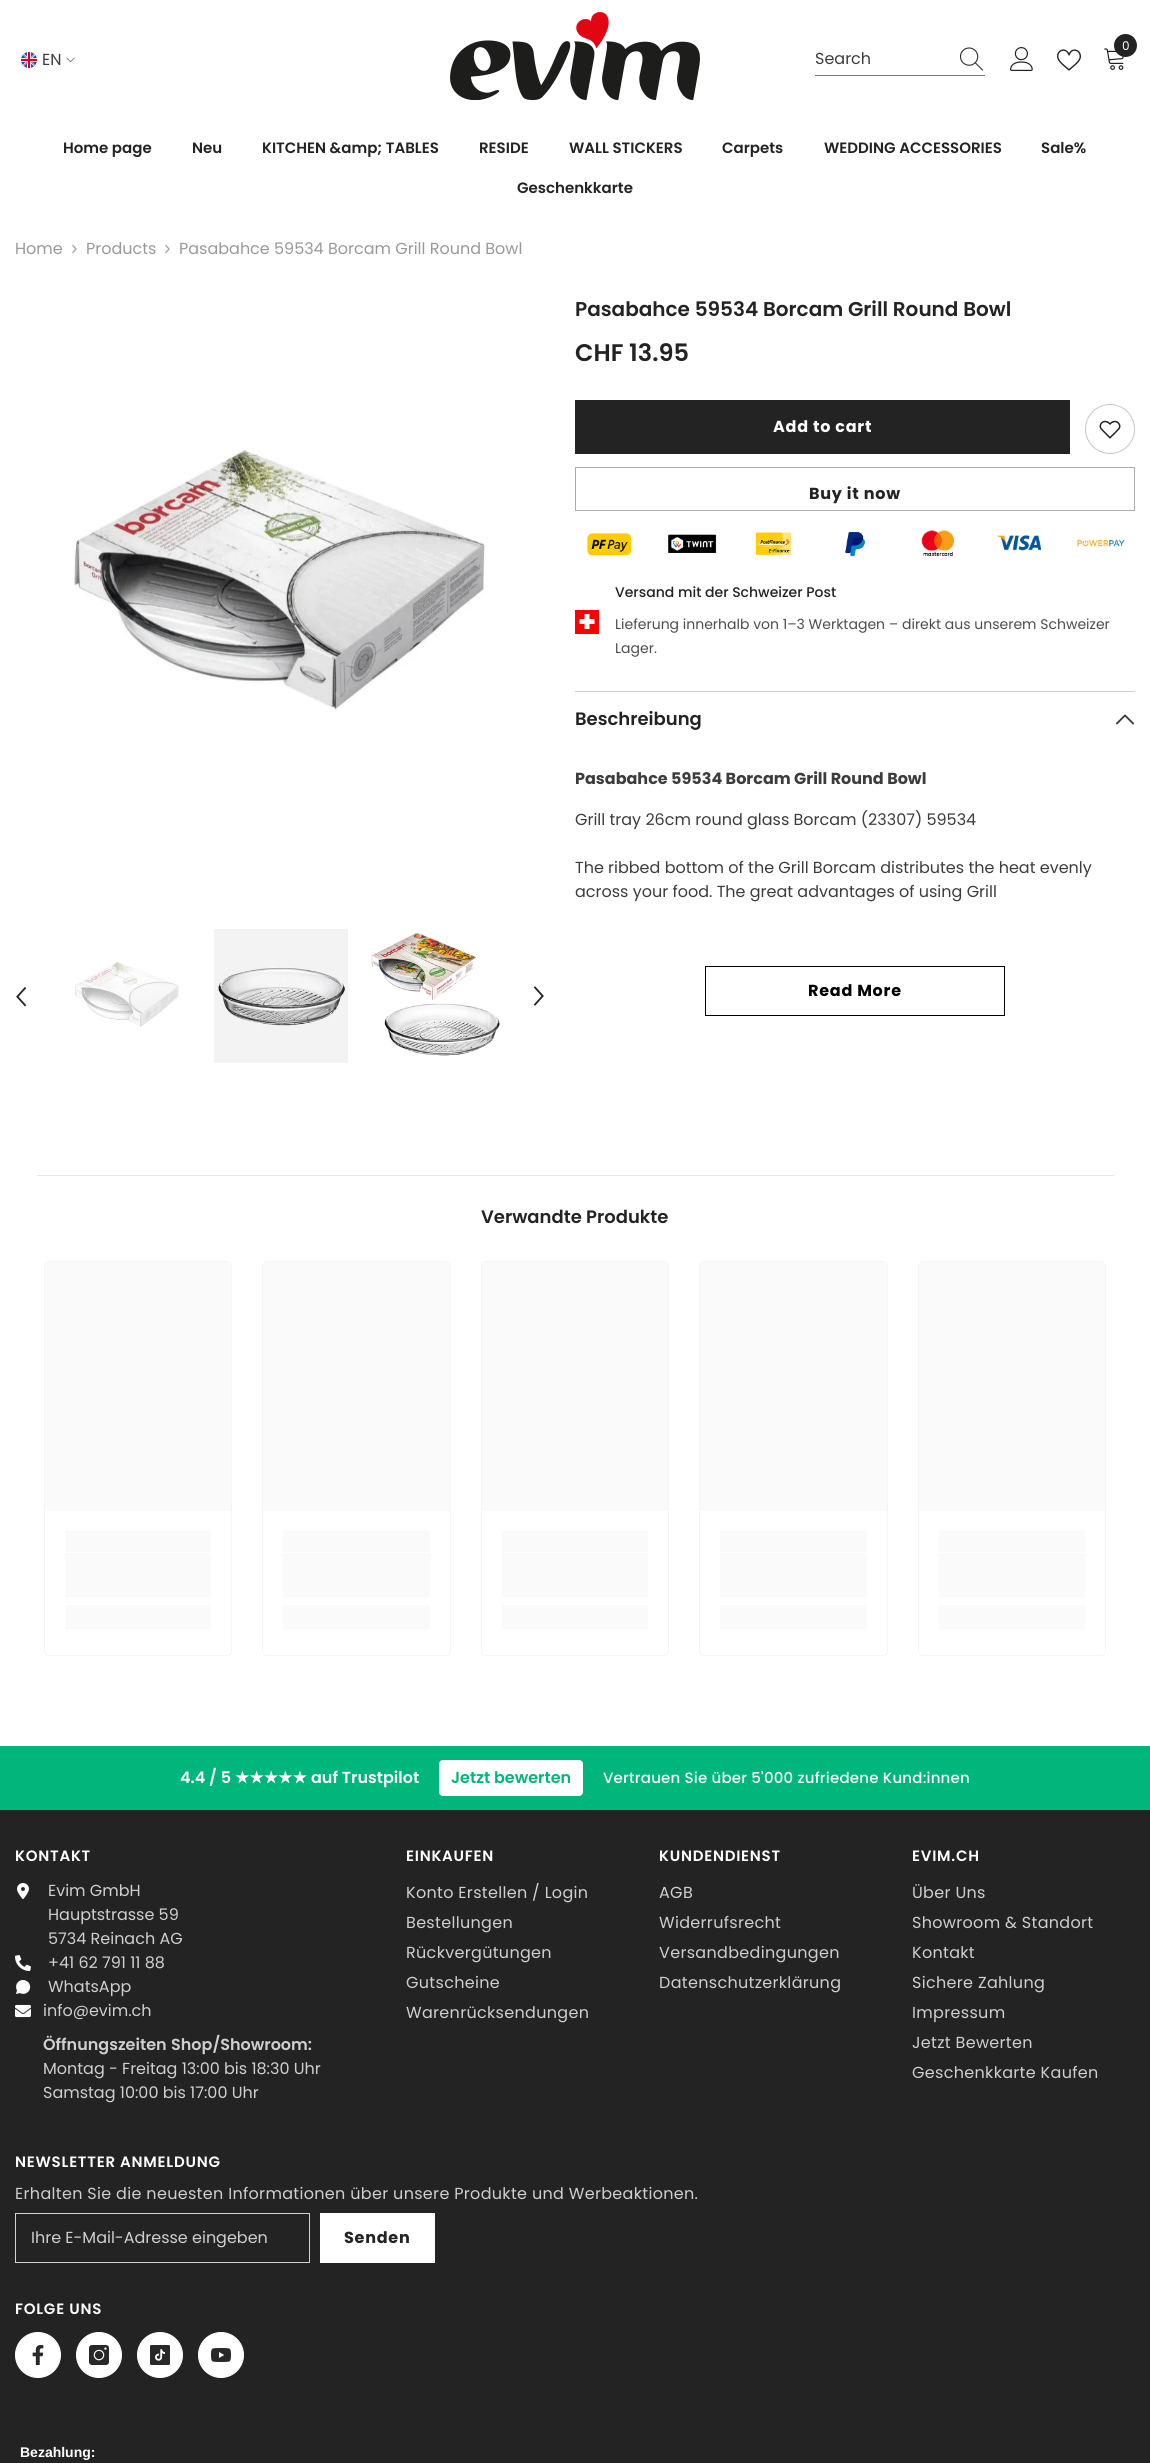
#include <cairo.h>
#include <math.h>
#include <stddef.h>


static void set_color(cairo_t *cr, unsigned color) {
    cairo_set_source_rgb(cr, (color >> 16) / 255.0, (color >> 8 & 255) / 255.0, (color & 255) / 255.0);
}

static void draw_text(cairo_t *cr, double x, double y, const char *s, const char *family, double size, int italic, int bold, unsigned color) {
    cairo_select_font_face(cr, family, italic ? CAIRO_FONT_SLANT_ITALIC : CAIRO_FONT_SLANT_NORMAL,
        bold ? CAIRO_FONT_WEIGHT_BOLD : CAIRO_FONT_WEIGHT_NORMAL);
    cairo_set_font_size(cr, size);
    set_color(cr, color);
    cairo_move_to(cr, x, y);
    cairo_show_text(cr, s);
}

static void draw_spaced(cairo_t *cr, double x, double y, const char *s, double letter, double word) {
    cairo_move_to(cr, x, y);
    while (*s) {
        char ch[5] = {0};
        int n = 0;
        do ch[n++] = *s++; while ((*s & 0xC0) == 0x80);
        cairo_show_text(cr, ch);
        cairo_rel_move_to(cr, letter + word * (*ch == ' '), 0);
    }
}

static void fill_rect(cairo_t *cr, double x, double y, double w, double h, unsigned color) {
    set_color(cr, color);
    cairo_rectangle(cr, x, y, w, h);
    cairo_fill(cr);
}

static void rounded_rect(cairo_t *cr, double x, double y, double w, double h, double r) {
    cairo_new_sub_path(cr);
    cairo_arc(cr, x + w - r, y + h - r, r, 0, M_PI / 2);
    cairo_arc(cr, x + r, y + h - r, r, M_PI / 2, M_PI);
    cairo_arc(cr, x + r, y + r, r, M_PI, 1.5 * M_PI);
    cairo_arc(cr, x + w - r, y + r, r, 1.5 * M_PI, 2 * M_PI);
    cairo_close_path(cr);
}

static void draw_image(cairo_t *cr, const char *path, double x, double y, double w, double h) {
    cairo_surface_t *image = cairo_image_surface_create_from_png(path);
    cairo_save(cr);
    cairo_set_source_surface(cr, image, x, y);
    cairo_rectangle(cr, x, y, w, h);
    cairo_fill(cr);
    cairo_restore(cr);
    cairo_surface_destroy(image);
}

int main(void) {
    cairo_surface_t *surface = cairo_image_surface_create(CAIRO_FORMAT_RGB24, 1150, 2463);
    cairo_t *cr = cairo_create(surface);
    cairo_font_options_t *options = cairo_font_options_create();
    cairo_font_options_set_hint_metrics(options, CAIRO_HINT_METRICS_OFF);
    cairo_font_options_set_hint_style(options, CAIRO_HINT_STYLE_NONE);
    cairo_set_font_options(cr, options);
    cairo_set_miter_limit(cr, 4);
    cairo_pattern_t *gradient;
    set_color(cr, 0xFFFFFF);
    cairo_paint(cr);
    draw_image(cr, "assets/img1.png", 21, 52, 16, 16);
    draw_text(cr, 42, 65, "EN", "Poppins", 16, 0, 0, 0x3C3C3C);
    draw_image(cr, "assets/img2.png", 66, 57, 9, 6);
    draw_image(cr, "assets/img3.png", 450, 12, 250, 88);
    draw_image(cr, "assets/img4.png", 1104, 48, 20, 22);
    set_color(cr, 0x232323);
    cairo_arc(cr, 1125.5, 45.5, 11.5, 0, 2 * M_PI);
    cairo_fill(cr);
    draw_text(cr, 1122, 50, "0", "Poppins", 12, 0, 0, 0xFFFFFF);
    draw_image(cr, "assets/img5.png", 1010, 47, 23, 24);
    draw_image(cr, "assets/img6.png", 1057, 49, 24, 22);
    fill_rect(cr, 815, 75, 170, 1, 0x7B7B7B);
    draw_text(cr, 815, 64, "Search", "Poppins", 16, 0, 0, 0x3C3C3C);
    draw_image(cr, "assets/img7.png", 960, 47, 23, 24);
    draw_text(cr, 63, 153, "Home page", "Poppins SemiBold", 15, 0, 0, 0x232323);
    draw_text(cr, 192, 153, "Neu", "Poppins SemiBold", 15, 0, 0, 0x232323);
    draw_text(cr, 262, 153, "KITCHEN &amp; TABLES", "Poppins SemiBold", 15, 0, 0, 0x232323);
    draw_text(cr, 479, 153, "RESIDE", "Poppins SemiBold", 15, 0, 0, 0x232323);
    draw_text(cr, 569, 153, "WALL STICKERS", "Poppins SemiBold", 15, 0, 0, 0x232323);
    draw_text(cr, 722, 153, "Carpets", "Poppins SemiBold", 15, 0, 0, 0x232323);
    draw_text(cr, 824, 153, "WEDDING ACCESSORIES", "Poppins SemiBold", 15, 0, 0, 0x232323);
    draw_text(cr, 1041, 153, "Sale%", "Poppins SemiBold", 15, 0, 0, 0x232323);
    draw_text(cr, 517, 193, "Geschenkkarte", "Poppins SemiBold", 15, 0, 0, 0x232323);
    draw_text(cr, 15, 254, "Home", "Poppins", 16, 0, 0, 0x999999);
    draw_image(cr, "assets/img8.png", 72, 244, 5, 10);
    draw_text(cr, 86, 254, "Products", "Poppins", 16, 0, 0, 0x999999);
    draw_image(cr, "assets/img8.png", 165, 244, 5, 10);
    draw_text(cr, 179, 254, "Pasabahce 59534 Borcam Grill Round Bowl", "Poppins", 16, 0, 0, 0x999999);
    draw_image(cr, "assets/img9.png", 73, 449, 413, 262);
    draw_image(cr, "assets/img10.png", 16, 987, 11, 20);
    draw_image(cr, "assets/img11.png", 75, 962, 104, 65);
    draw_image(cr, "assets/img12.png", 214, 929, 134, 134);
    draw_image(cr, "assets/img13.png", 368, 932, 133, 124);
    draw_image(cr, "assets/img14.png", 533, 986, 11, 20);
    draw_text(cr, 575, 316, "Pasabahce 59534 Borcam Grill Round Bowl", "Poppins SemiBold", 20, 0, 0, 0x232323);
    draw_text(cr, 575, 361, "CHF 13.95", "Poppins SemiBold", 24, 0, 0, 0x232323);
    fill_rect(cr, 575, 400, 495, 54, 0x232323);
    cairo_select_font_face(cr, "Poppins", CAIRO_FONT_SLANT_NORMAL, CAIRO_FONT_WEIGHT_BOLD);
    cairo_set_font_size(cr, 16);
    set_color(cr, 0xFFFFFF);
    draw_spaced(cr, 773, 432, "Add to cart", 0.75, 0);
    cairo_new_path(cr);
    cairo_arc(cr, 1110, 429, 24.5, 0, 2 * M_PI);
    set_color(cr, 0xC7C7C7);
    cairo_set_line_width(cr, 1);
    cairo_stroke(cr);
    draw_image(cr, "assets/img15.png", 1099, 420, 22, 19);
    cairo_rectangle(cr, 575.5, 467.5, 559, 43);
    set_color(cr, 0xACACAC);
    cairo_stroke(cr);
    set_color(cr, 0x232323);
    draw_spaced(cr, 809, 499, "Buy it now", 0.75, 0);
    draw_image(cr, "assets/img16.png", 586, 530, 539, 27);
    draw_image(cr, "assets/img17.png", 575, 610, 24, 24);
    draw_text(cr, 615, 597, "Versand mit der Schweizer Post", "Poppins Medium", 14, 0, 0, 0x232323);
    draw_text(cr, 615, 629, "Lieferung innerhalb von 1–3 Werktagen – direkt aus unserem Schweizer", "Poppins", 14, 0, 0, 0x4D4D4D);
    draw_text(cr, 615, 653, "Lager.", "Poppins", 14, 0, 0, 0x4D4D4D);
    fill_rect(cr, 575, 691, 560, 1, 0xD3D3D3);
    draw_text(cr, 575, 725, "Beschreibung", "Poppins SemiBold", 18, 0, 0, 0x232323);
    draw_image(cr, "assets/img18.png", 1116, 714, 18, 11);
    draw_text(cr, 575, 784, "Pasabahce 59534 Borcam Grill Round Bowl", "Poppins", 16, 0, 1, 0x3C3C3C);
    draw_text(cr, 575, 825, "Grill tray 26cm round glass Borcam (23307) 59534", "Poppins", 16, 0, 0, 0x3C3C3C);
    draw_text(cr, 575, 873, "The ribbed bottom of the Grill Borcam distributes the heat evenly", "Poppins", 16, 0, 0, 0x3C3C3C);
    draw_text(cr, 575, 897, "across your food. The great advantages of using Grill", "Poppins", 16, 0, 0, 0x3C3C3C);
    cairo_rectangle(cr, 705.5, 966.5, 299, 49);
    set_color(cr, 0x000000);
    cairo_stroke(cr);
    cairo_select_font_face(cr, "Poppins", CAIRO_FONT_SLANT_NORMAL, CAIRO_FONT_WEIGHT_BOLD);
    draw_spaced(cr, 808, 996, "Read More", 0.75, 0);
    fill_rect(cr, 37, 1175, 1077, 1, 0xE8E8E8);
    draw_text(cr, 481, 1223, "Verwandte Produkte", "Poppins SemiBold", 18, 0, 0, 0x232323);
    rounded_rect(cr, 44.5, 1261.5, 187, 394, 4.5);
    set_color(cr, 0xF5F5F5);
    cairo_stroke(cr);
    fill_rect(cr, 45, 1262, 186, 249, 0xFAFAFA);
    gradient = cairo_pattern_create_linear(-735, 1542, 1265, 1542);
    cairo_pattern_add_color_stop_rgba(gradient, 0.04, 0.98, 0.98, 0.98, 1);
    cairo_pattern_add_color_stop_rgba(gradient, 0.25, 0.945, 0.949, 0.953, 1);
    cairo_pattern_add_color_stop_rgba(gradient, 0.36, 0.98, 0.98, 0.98, 1);
    cairo_set_source(cr, gradient);
    cairo_pattern_destroy(gradient);
    cairo_rectangle(cr, 65, 1531, 146, 21);
    cairo_fill(cr);
    gradient = cairo_pattern_create_linear(-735, 1575, 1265, 1575);
    cairo_pattern_add_color_stop_rgba(gradient, 0.04, 0.98, 0.98, 0.98, 1);
    cairo_pattern_add_color_stop_rgba(gradient, 0.25, 0.945, 0.949, 0.953, 1);
    cairo_pattern_add_color_stop_rgba(gradient, 0.36, 0.98, 0.98, 0.98, 1);
    cairo_set_source(cr, gradient);
    cairo_pattern_destroy(gradient);
    cairo_rectangle(cr, 65, 1553, 146, 44);
    cairo_fill(cr);
    gradient = cairo_pattern_create_linear(-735, 1617, 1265, 1617);
    cairo_pattern_add_color_stop_rgba(gradient, 0.04, 0.98, 0.98, 0.98, 1);
    cairo_pattern_add_color_stop_rgba(gradient, 0.25, 0.945, 0.949, 0.953, 1);
    cairo_pattern_add_color_stop_rgba(gradient, 0.36, 0.98, 0.98, 0.98, 1);
    cairo_set_source(cr, gradient);
    cairo_pattern_destroy(gradient);
    cairo_rectangle(cr, 65, 1605, 146, 24);
    cairo_fill(cr);
    rounded_rect(cr, 262.5, 1261.5, 188, 394, 4.5);
    set_color(cr, 0xF5F5F5);
    cairo_stroke(cr);
    fill_rect(cr, 263, 1262, 187, 249, 0xFAFAFA);
    gradient = cairo_pattern_create_linear(-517, 1542, 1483, 1542);
    cairo_pattern_add_color_stop_rgba(gradient, 0.04, 0.98, 0.98, 0.98, 1);
    cairo_pattern_add_color_stop_rgba(gradient, 0.25, 0.945, 0.949, 0.953, 1);
    cairo_pattern_add_color_stop_rgba(gradient, 0.36, 0.98, 0.98, 0.98, 1);
    cairo_set_source(cr, gradient);
    cairo_pattern_destroy(gradient);
    cairo_rectangle(cr, 283, 1531, 147, 21);
    cairo_fill(cr);
    gradient = cairo_pattern_create_linear(-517, 1575, 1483, 1575);
    cairo_pattern_add_color_stop_rgba(gradient, 0.04, 0.98, 0.98, 0.98, 1);
    cairo_pattern_add_color_stop_rgba(gradient, 0.25, 0.945, 0.949, 0.953, 1);
    cairo_pattern_add_color_stop_rgba(gradient, 0.36, 0.98, 0.98, 0.98, 1);
    cairo_set_source(cr, gradient);
    cairo_pattern_destroy(gradient);
    cairo_rectangle(cr, 283, 1553, 147, 44);
    cairo_fill(cr);
    gradient = cairo_pattern_create_linear(-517, 1617, 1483, 1617);
    cairo_pattern_add_color_stop_rgba(gradient, 0.04, 0.98, 0.98, 0.98, 1);
    cairo_pattern_add_color_stop_rgba(gradient, 0.25, 0.945, 0.949, 0.953, 1);
    cairo_pattern_add_color_stop_rgba(gradient, 0.36, 0.98, 0.98, 0.98, 1);
    cairo_set_source(cr, gradient);
    cairo_pattern_destroy(gradient);
    cairo_rectangle(cr, 283, 1605, 147, 24);
    cairo_fill(cr);
    rounded_rect(cr, 481.5, 1261.5, 187, 394, 4.5);
    set_color(cr, 0xF5F5F5);
    cairo_stroke(cr);
    fill_rect(cr, 482, 1262, 186, 249, 0xFAFAFA);
    gradient = cairo_pattern_create_linear(-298, 1542, 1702, 1542);
    cairo_pattern_add_color_stop_rgba(gradient, 0.04, 0.98, 0.98, 0.98, 1);
    cairo_pattern_add_color_stop_rgba(gradient, 0.25, 0.945, 0.949, 0.953, 1);
    cairo_pattern_add_color_stop_rgba(gradient, 0.36, 0.98, 0.98, 0.98, 1);
    cairo_set_source(cr, gradient);
    cairo_pattern_destroy(gradient);
    cairo_rectangle(cr, 502, 1531, 146, 21);
    cairo_fill(cr);
    gradient = cairo_pattern_create_linear(-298, 1575, 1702, 1575);
    cairo_pattern_add_color_stop_rgba(gradient, 0.04, 0.98, 0.98, 0.98, 1);
    cairo_pattern_add_color_stop_rgba(gradient, 0.25, 0.945, 0.949, 0.953, 1);
    cairo_pattern_add_color_stop_rgba(gradient, 0.36, 0.98, 0.98, 0.98, 1);
    cairo_set_source(cr, gradient);
    cairo_pattern_destroy(gradient);
    cairo_rectangle(cr, 502, 1553, 146, 44);
    cairo_fill(cr);
    gradient = cairo_pattern_create_linear(-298, 1617, 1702, 1617);
    cairo_pattern_add_color_stop_rgba(gradient, 0.04, 0.98, 0.98, 0.98, 1);
    cairo_pattern_add_color_stop_rgba(gradient, 0.25, 0.945, 0.949, 0.953, 1);
    cairo_pattern_add_color_stop_rgba(gradient, 0.36, 0.98, 0.98, 0.98, 1);
    cairo_set_source(cr, gradient);
    cairo_pattern_destroy(gradient);
    cairo_rectangle(cr, 502, 1605, 146, 24);
    cairo_fill(cr);
    rounded_rect(cr, 699.5, 1261.5, 188, 394, 4.5);
    set_color(cr, 0xF5F5F5);
    cairo_stroke(cr);
    fill_rect(cr, 700, 1262, 187, 249, 0xFAFAFA);
    gradient = cairo_pattern_create_linear(-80, 1542, 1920, 1542);
    cairo_pattern_add_color_stop_rgba(gradient, 0.04, 0.98, 0.98, 0.98, 1);
    cairo_pattern_add_color_stop_rgba(gradient, 0.25, 0.945, 0.949, 0.953, 1);
    cairo_pattern_add_color_stop_rgba(gradient, 0.36, 0.98, 0.98, 0.98, 1);
    cairo_set_source(cr, gradient);
    cairo_pattern_destroy(gradient);
    cairo_rectangle(cr, 720, 1531, 147, 21);
    cairo_fill(cr);
    gradient = cairo_pattern_create_linear(-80, 1575, 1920, 1575);
    cairo_pattern_add_color_stop_rgba(gradient, 0.04, 0.98, 0.98, 0.98, 1);
    cairo_pattern_add_color_stop_rgba(gradient, 0.25, 0.945, 0.949, 0.953, 1);
    cairo_pattern_add_color_stop_rgba(gradient, 0.36, 0.98, 0.98, 0.98, 1);
    cairo_set_source(cr, gradient);
    cairo_pattern_destroy(gradient);
    cairo_rectangle(cr, 720, 1553, 147, 44);
    cairo_fill(cr);
    gradient = cairo_pattern_create_linear(-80, 1617, 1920, 1617);
    cairo_pattern_add_color_stop_rgba(gradient, 0.04, 0.98, 0.98, 0.98, 1);
    cairo_pattern_add_color_stop_rgba(gradient, 0.25, 0.945, 0.949, 0.953, 1);
    cairo_pattern_add_color_stop_rgba(gradient, 0.36, 0.98, 0.98, 0.98, 1);
    cairo_set_source(cr, gradient);
    cairo_pattern_destroy(gradient);
    cairo_rectangle(cr, 720, 1605, 147, 24);
    cairo_fill(cr);
    rounded_rect(cr, 918.5, 1261.5, 187, 394, 4.5);
    set_color(cr, 0xF5F5F5);
    cairo_stroke(cr);
    fill_rect(cr, 919, 1262, 186, 249, 0xFAFAFA);
    gradient = cairo_pattern_create_linear(139, 1542, 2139, 1542);
    cairo_pattern_add_color_stop_rgba(gradient, 0.04, 0.98, 0.98, 0.98, 1);
    cairo_pattern_add_color_stop_rgba(gradient, 0.25, 0.945, 0.949, 0.953, 1);
    cairo_pattern_add_color_stop_rgba(gradient, 0.36, 0.98, 0.98, 0.98, 1);
    cairo_set_source(cr, gradient);
    cairo_pattern_destroy(gradient);
    cairo_rectangle(cr, 939, 1531, 146, 21);
    cairo_fill(cr);
    gradient = cairo_pattern_create_linear(139, 1575, 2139, 1575);
    cairo_pattern_add_color_stop_rgba(gradient, 0.04, 0.98, 0.98, 0.98, 1);
    cairo_pattern_add_color_stop_rgba(gradient, 0.25, 0.945, 0.949, 0.953, 1);
    cairo_pattern_add_color_stop_rgba(gradient, 0.36, 0.98, 0.98, 0.98, 1);
    cairo_set_source(cr, gradient);
    cairo_pattern_destroy(gradient);
    cairo_rectangle(cr, 939, 1553, 146, 44);
    cairo_fill(cr);
    gradient = cairo_pattern_create_linear(139, 1617, 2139, 1617);
    cairo_pattern_add_color_stop_rgba(gradient, 0.04, 0.98, 0.98, 0.98, 1);
    cairo_pattern_add_color_stop_rgba(gradient, 0.25, 0.945, 0.949, 0.953, 1);
    cairo_pattern_add_color_stop_rgba(gradient, 0.36, 0.98, 0.98, 0.98, 1);
    cairo_set_source(cr, gradient);
    cairo_pattern_destroy(gradient);
    cairo_rectangle(cr, 939, 1605, 146, 24);
    cairo_fill(cr);
    fill_rect(cr, 0, 1746, 1150, 64, 0x00B67A);
    draw_text(cr, 180, 1783, "4.4 / 5", "Poppins SemiBold", 16, 0, 0, 0xFFFFFF);
    draw_text(cr, 235, 1783, "★★★★★", "DejaVu Sans", 16, 0, 1, 0xFFFFFF);
    draw_text(cr, 311, 1783, "auf Trustpilot", "Poppins SemiBold", 16, 0, 0, 0xFFFFFF);
    rounded_rect(cr, 439, 1760, 144, 36, 4);
    cairo_fill(cr);
    draw_text(cr, 451, 1783, "Jetzt bewerten", "Poppins SemiBold", 16, 0, 0, 0x00B67A);
    cairo_select_font_face(cr, "Poppins Medium", CAIRO_FONT_SLANT_NORMAL, CAIRO_FONT_WEIGHT_NORMAL);
    cairo_set_font_size(cr, 15);
    set_color(cr, 0xFFFFFF);
    draw_spaced(cr, 603, 1783, "Vertrauen Sie über 5'000 zufriedene Kund:innen", 0.2, 0);
    fill_rect(cr, 0, 1810, 1150, 653, 0x232323);
    cairo_select_font_face(cr, "Poppins SemiBold", CAIRO_FONT_SLANT_NORMAL, CAIRO_FONT_WEIGHT_NORMAL);
    set_color(cr, 0xFFFFFF);
    draw_spaced(cr, 15, 1861, "KONTAKT", 0.75, 0);
    draw_image(cr, "assets/img19.png", 17, 1883, 12, 16);
    draw_text(cr, 48, 1896, "Evim GmbH", "Poppins", 16, 0, 0, 0xCFCFCF);
    draw_text(cr, 48, 1920, "Hauptstrasse 59", "Poppins", 16, 0, 0, 0xCFCFCF);
    draw_text(cr, 48, 1944, "5734 Reinach AG", "Poppins", 16, 0, 0, 0xCFCFCF);
    draw_image(cr, "assets/img20.png", 15, 1955, 16, 16);
    draw_text(cr, 48, 1968, "+41 62 791 11 88", "Poppins", 16, 0, 0, 0xCFCFCF);
    draw_image(cr, "assets/img21.png", 16, 1980, 15, 14);
    draw_text(cr, 48, 1992, "WhatsApp", "Poppins", 16, 0, 0, 0xCFCFCF);
    draw_image(cr, "assets/img22.png", 15, 2004, 16, 14);
    draw_text(cr, 43, 2016, "info@evim.ch", "Poppins", 16, 0, 0, 0xCFCFCF);
    draw_text(cr, 43, 2050, "Öffnungszeiten", "Poppins SemiBold", 16, 0, 0, 0xCFCFCF);
    draw_text(cr, 171, 2050, "Shop/Showroom:", "Poppins SemiBold", 16, 0, 0, 0xCFCFCF);
    draw_text(cr, 43, 2074, "Montag - Freitag 13:00 bis 18:30 Uhr", "Poppins", 16, 0, 0, 0xCFCFCF);
    draw_text(cr, 43, 2098, "Samstag 10:00 bis 17:00 Uhr", "Poppins", 16, 0, 0, 0xCFCFCF);
    cairo_select_font_face(cr, "Poppins SemiBold", CAIRO_FONT_SLANT_NORMAL, CAIRO_FONT_WEIGHT_NORMAL);
    cairo_set_font_size(cr, 15);
    set_color(cr, 0xFFFFFF);
    draw_spaced(cr, 406, 1861, "EINKAUFEN", 0.75, 0);
    cairo_select_font_face(cr, "Poppins", CAIRO_FONT_SLANT_NORMAL, CAIRO_FONT_WEIGHT_NORMAL);
    cairo_set_font_size(cr, 16);
    set_color(cr, 0xCFCFCF);
    draw_spaced(cr, 406, 1898, "Konto Erstellen / Login", 0.32, 0);
    draw_spaced(cr, 406, 1928, "Bestellungen", 0.32, 0);
    draw_spaced(cr, 406, 1958, "Rückvergütungen", 0.32, 0);
    draw_spaced(cr, 406, 1988, "Gutscheine", 0.32, 0);
    draw_spaced(cr, 406, 2018, "Warenrücksendungen", 0.32, 0);
    cairo_select_font_face(cr, "Poppins SemiBold", CAIRO_FONT_SLANT_NORMAL, CAIRO_FONT_WEIGHT_NORMAL);
    cairo_set_font_size(cr, 15);
    set_color(cr, 0xFFFFFF);
    draw_spaced(cr, 659, 1861, "KUNDENDIENST", 0.75, 0);
    cairo_select_font_face(cr, "Poppins", CAIRO_FONT_SLANT_NORMAL, CAIRO_FONT_WEIGHT_NORMAL);
    cairo_set_font_size(cr, 16);
    set_color(cr, 0xCFCFCF);
    draw_spaced(cr, 659, 1898, "AGB", 0.32, 0);
    draw_spaced(cr, 659, 1928, "Widerrufsrecht", 0.32, 0);
    draw_spaced(cr, 659, 1958, "Versandbedingungen", 0.32, 0);
    draw_spaced(cr, 659, 1988, "Datenschutzerklärung", 0.32, 0);
    cairo_select_font_face(cr, "Poppins SemiBold", CAIRO_FONT_SLANT_NORMAL, CAIRO_FONT_WEIGHT_NORMAL);
    cairo_set_font_size(cr, 15);
    set_color(cr, 0xFFFFFF);
    draw_spaced(cr, 912, 1861, "EVIM.CH", 0.75, 0);
    cairo_select_font_face(cr, "Poppins", CAIRO_FONT_SLANT_NORMAL, CAIRO_FONT_WEIGHT_NORMAL);
    cairo_set_font_size(cr, 16);
    set_color(cr, 0xCFCFCF);
    draw_spaced(cr, 912, 1898, "Über Uns", 0.32, 0);
    draw_spaced(cr, 912, 1928, "Showroom & Standort", 0.32, 0);
    draw_spaced(cr, 912, 1958, "Kontakt", 0.32, 0);
    draw_spaced(cr, 912, 1988, "Sichere Zahlung", 0.32, 0);
    draw_spaced(cr, 912, 2018, "Impressum", 0.32, 0);
    draw_spaced(cr, 912, 2048, "Jetzt Bewerten", 0.32, 0);
    draw_spaced(cr, 912, 2078, "Geschenkkarte Kaufen", 0.32, 0);
    cairo_select_font_face(cr, "Poppins SemiBold", CAIRO_FONT_SLANT_NORMAL, CAIRO_FONT_WEIGHT_NORMAL);
    cairo_set_font_size(cr, 15);
    set_color(cr, 0xFFFFFF);
    draw_spaced(cr, 15, 2167, "NEWSLETTER ANMELDUNG", 0.75, 0);
    cairo_select_font_face(cr, "Poppins", CAIRO_FONT_SLANT_NORMAL, CAIRO_FONT_WEIGHT_NORMAL);
    cairo_set_font_size(cr, 16);
    set_color(cr, 0xCFCFCF);
    draw_spaced(cr, 15, 2199, "Erhalten Sie die neuesten Informationen über unsere Produkte und Werbeaktionen.", 0.32, 0);
    cairo_rectangle(cr, 15.5, 2213.5, 294, 49);
    set_color(cr, 0xD3D3D3);
    cairo_stroke(cr);
    draw_text(cr, 31, 2243, "Ihre E-Mail-Adresse eingeben", "Poppins", 16, 0, 0, 0xCFCFCF);
    fill_rect(cr, 320, 2213, 115, 50, 0xFFFFFF);
    cairo_select_font_face(cr, "Poppins", CAIRO_FONT_SLANT_NORMAL, CAIRO_FONT_WEIGHT_BOLD);
    set_color(cr, 0x232323);
    draw_spaced(cr, 344, 2243, "Senden", 0.75, 0);
    cairo_select_font_face(cr, "Poppins SemiBold", CAIRO_FONT_SLANT_NORMAL, CAIRO_FONT_WEIGHT_NORMAL);
    cairo_set_font_size(cr, 15);
    set_color(cr, 0xFFFFFF);
    draw_spaced(cr, 15, 2314, "FOLGE UNS", 0.75, 0);
    cairo_new_path(cr);
    cairo_arc(cr, 38, 2355, 22.5, 0, 2 * M_PI);
    cairo_fill_preserve(cr);
    cairo_stroke(cr);
    draw_image(cr, "assets/img23.png", 32, 2345, 12, 20);
    cairo_arc(cr, 99, 2355, 22.5, 0, 2 * M_PI);
    cairo_fill_preserve(cr);
    cairo_stroke(cr);
    draw_image(cr, "assets/img24.png", 89, 2345, 20, 20);
    cairo_arc(cr, 160, 2355, 22.5, 0, 2 * M_PI);
    cairo_fill_preserve(cr);
    cairo_stroke(cr);
    draw_image(cr, "assets/img25.png", 150, 2345, 20, 20);
    cairo_arc(cr, 221, 2355, 22.5, 0, 2 * M_PI);
    cairo_fill_preserve(cr);
    cairo_stroke(cr);
    draw_image(cr, "assets/img26.png", 211, 2348, 20, 14);
    draw_text(cr, 20, 2457, "Bezahlung:", "Liberation Sans", 14, 0, 1, 0xFFFFFF);
    cairo_surface_write_to_png(surface, "output.png");
    cairo_font_options_destroy(options);
    cairo_destroy(cr);
    cairo_surface_destroy(surface);
    return 0;
}
